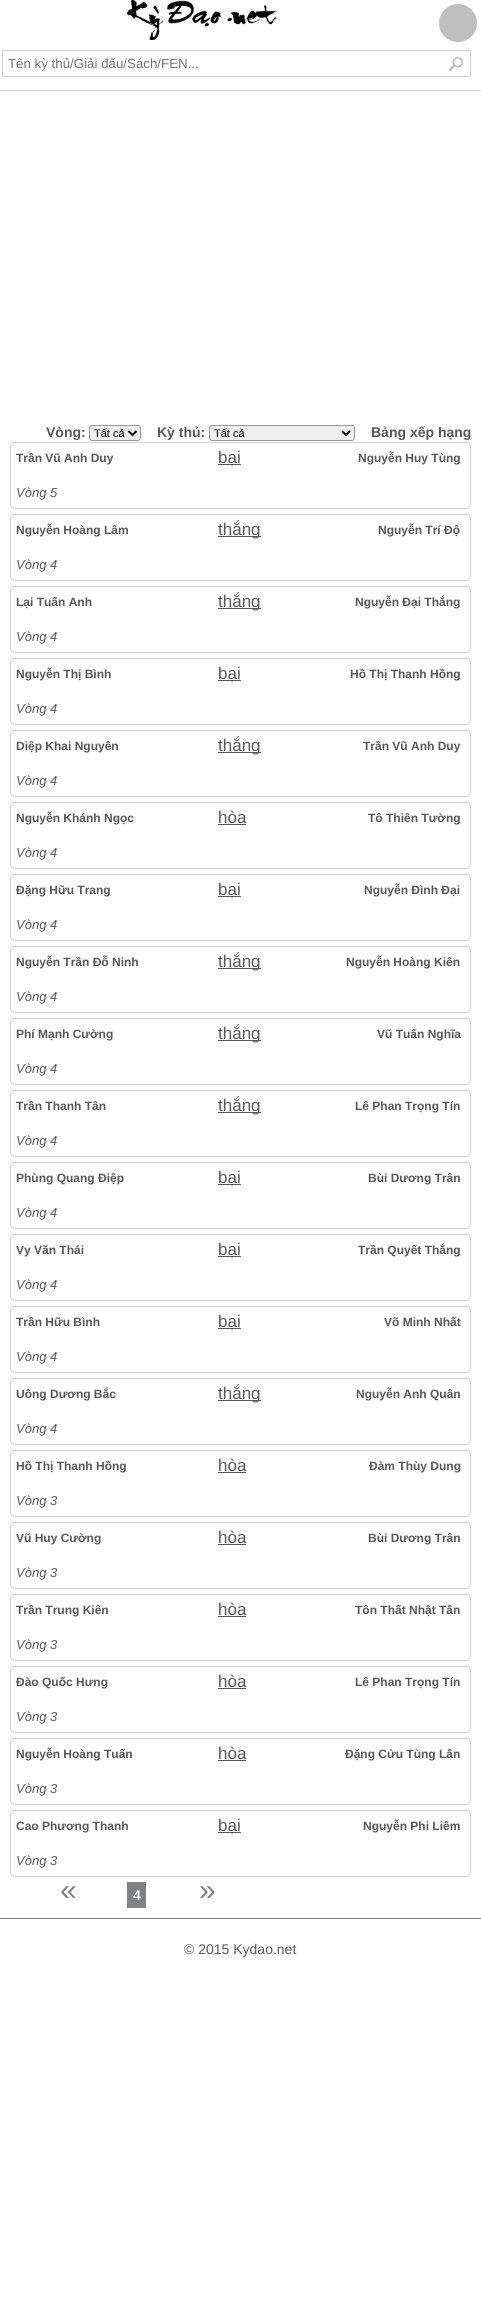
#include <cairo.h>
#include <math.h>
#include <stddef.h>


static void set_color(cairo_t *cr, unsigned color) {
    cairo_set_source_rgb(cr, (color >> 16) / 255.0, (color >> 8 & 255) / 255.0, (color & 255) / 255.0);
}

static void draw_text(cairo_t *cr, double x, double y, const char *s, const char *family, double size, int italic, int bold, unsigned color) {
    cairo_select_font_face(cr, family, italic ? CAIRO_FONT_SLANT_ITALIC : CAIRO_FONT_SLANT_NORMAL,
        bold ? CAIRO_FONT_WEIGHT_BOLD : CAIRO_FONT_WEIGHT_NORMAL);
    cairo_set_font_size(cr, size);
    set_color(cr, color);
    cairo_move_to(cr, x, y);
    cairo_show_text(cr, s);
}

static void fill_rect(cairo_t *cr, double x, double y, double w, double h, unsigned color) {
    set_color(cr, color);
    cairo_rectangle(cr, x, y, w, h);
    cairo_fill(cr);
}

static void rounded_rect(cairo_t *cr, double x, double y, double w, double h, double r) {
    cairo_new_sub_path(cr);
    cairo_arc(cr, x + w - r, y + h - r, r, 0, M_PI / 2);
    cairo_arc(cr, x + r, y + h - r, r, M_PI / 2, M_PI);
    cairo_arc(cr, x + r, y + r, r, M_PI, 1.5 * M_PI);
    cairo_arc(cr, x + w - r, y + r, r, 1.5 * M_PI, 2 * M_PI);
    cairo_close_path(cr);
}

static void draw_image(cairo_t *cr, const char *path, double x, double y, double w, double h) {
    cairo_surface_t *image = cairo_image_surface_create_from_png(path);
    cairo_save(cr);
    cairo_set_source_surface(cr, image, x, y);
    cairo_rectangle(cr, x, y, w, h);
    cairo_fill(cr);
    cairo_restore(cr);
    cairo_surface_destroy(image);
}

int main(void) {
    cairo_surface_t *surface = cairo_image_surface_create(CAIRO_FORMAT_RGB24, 481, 2314);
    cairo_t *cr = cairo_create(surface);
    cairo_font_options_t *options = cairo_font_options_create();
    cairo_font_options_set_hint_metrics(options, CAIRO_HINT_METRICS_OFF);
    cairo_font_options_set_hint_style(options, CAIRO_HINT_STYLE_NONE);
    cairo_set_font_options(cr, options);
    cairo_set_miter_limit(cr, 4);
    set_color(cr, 0xFFFFFF);
    cairo_paint(cr);
    fill_rect(cr, 0, 90, 481, 1, 0xD2D2D2);
    draw_image(cr, "assets/img1.png", 127, 0, 150, 40);
    set_color(cr, 0xBFBFBF);
    cairo_arc(cr, 458, 23, 19, 0, 2 * M_PI);
    cairo_fill(cr);
    cairo_rectangle(cr, 2.5, 50.5, 468, 26);
    set_color(cr, 0xD2D2D2);
    cairo_set_line_width(cr, 1);
    cairo_stroke(cr);
    draw_text(cr, 8, 68, "Tên kỳ thủ/Giải đấu/Sách/FEN...", "Liberation Sans", 13.3, 0, 0, 0x757575);
    draw_image(cr, "assets/img2.png", 449, 57, 14, 14);
    draw_text(cr, 46, 437, "Vòng:", "Liberation Sans", 14, 0, 1, 0x585858);
    set_color(cr, 0xEFEFEF);
    rounded_rect(cr, 89.5, 425.5, 51, 15, 2.5);
    cairo_fill_preserve(cr);
    set_color(cr, 0x999999);
    cairo_stroke(cr);
    cairo_new_path(cr);
    cairo_move_to(cr, 128.5, 431);
    cairo_line_to(cr, 132.5, 435);
    cairo_line_to(cr, 136.5, 431);
    set_color(cr, 0x000000);
    cairo_set_line_width(cr, 2);
    cairo_stroke(cr);
    draw_text(cr, 94, 437, "Tất cả", "Liberation Sans", 11, 0, 0, 0x000000);
    draw_text(cr, 157, 437, "Kỳ thủ:", "Liberation Sans", 14, 0, 1, 0x585858);
    set_color(cr, 0xEFEFEF);
    rounded_rect(cr, 209.5, 425.5, 145, 15, 2.5);
    cairo_fill_preserve(cr);
    set_color(cr, 0x999999);
    cairo_set_line_width(cr, 1);
    cairo_stroke(cr);
    cairo_new_path(cr);
    cairo_move_to(cr, 342, 431);
    cairo_line_to(cr, 346, 435);
    cairo_line_to(cr, 350, 431);
    set_color(cr, 0x000000);
    cairo_set_line_width(cr, 2);
    cairo_stroke(cr);
    draw_text(cr, 214, 437, "Tất cả", "Liberation Sans", 11, 0, 0, 0x000000);
    draw_text(cr, 371, 437, "Bảng xếp hạng", "Liberation Sans", 14, 0, 1, 0x585858);
    rounded_rect(cr, 10.5, 442.5, 460, 66, 4.5);
    set_color(cr, 0xD2D2D2);
    cairo_set_line_width(cr, 1);
    cairo_stroke(cr);
    draw_text(cr, 16, 462, "Trần Vũ Anh Duy", "Liberation Sans", 12, 0, 1, 0x585858);
    fill_rect(cr, 218, 464, 23, 1, 0x585858);
    draw_text(cr, 218, 463, "bại", "Liberation Sans", 17, 0, 0, 0x585858);
    draw_text(cr, 358, 462, "Nguyễn Huy Tùng", "Liberation Sans", 12, 0, 1, 0x585858);
    draw_text(cr, 16, 497, "Vòng 5", "Liberation Sans", 13, 1, 0, 0x585858);
    rounded_rect(cr, 10.5, 514.5, 460, 66, 4.5);
    set_color(cr, 0xD2D2D2);
    cairo_stroke(cr);
    draw_text(cr, 16, 534, "Nguyễn Hoàng Lâm", "Liberation Sans", 12, 0, 1, 0x585858);
    fill_rect(cr, 218, 536, 43, 1, 0x585858);
    draw_text(cr, 218, 535, "thắng", "Liberation Sans", 17, 0, 0, 0x585858);
    draw_text(cr, 378, 534, "Nguyễn Trí Độ", "Liberation Sans", 12, 0, 1, 0x585858);
    draw_text(cr, 16, 569, "Vòng 4", "Liberation Sans", 13, 1, 0, 0x585858);
    rounded_rect(cr, 10.5, 586.5, 460, 66, 4.5);
    set_color(cr, 0xD2D2D2);
    cairo_stroke(cr);
    draw_text(cr, 16, 606, "Lại Tuấn Anh", "Liberation Sans", 12, 0, 1, 0x585858);
    fill_rect(cr, 218, 608, 43, 1, 0x585858);
    draw_text(cr, 218, 607, "thắng", "Liberation Sans", 17, 0, 0, 0x585858);
    draw_text(cr, 355, 606, "Nguyễn Đại Thắng", "Liberation Sans", 12, 0, 1, 0x585858);
    draw_text(cr, 16, 641, "Vòng 4", "Liberation Sans", 13, 1, 0, 0x585858);
    rounded_rect(cr, 10.5, 658.5, 460, 66, 4.5);
    set_color(cr, 0xD2D2D2);
    cairo_stroke(cr);
    draw_text(cr, 16, 678, "Nguyễn Thị Bình", "Liberation Sans", 12, 0, 1, 0x585858);
    fill_rect(cr, 218, 680, 23, 1, 0x585858);
    draw_text(cr, 218, 679, "bại", "Liberation Sans", 17, 0, 0, 0x585858);
    draw_text(cr, 350, 678, "Hồ Thị Thanh Hồng", "Liberation Sans", 12, 0, 1, 0x585858);
    draw_text(cr, 16, 713, "Vòng 4", "Liberation Sans", 13, 1, 0, 0x585858);
    rounded_rect(cr, 10.5, 730.5, 460, 66, 4.5);
    set_color(cr, 0xD2D2D2);
    cairo_stroke(cr);
    draw_text(cr, 16, 750, "Diệp Khai Nguyên", "Liberation Sans", 12, 0, 1, 0x585858);
    fill_rect(cr, 218, 752, 43, 1, 0x585858);
    draw_text(cr, 218, 751, "thắng", "Liberation Sans", 17, 0, 0, 0x585858);
    draw_text(cr, 363, 750, "Trần Vũ Anh Duy", "Liberation Sans", 12, 0, 1, 0x585858);
    draw_text(cr, 16, 785, "Vòng 4", "Liberation Sans", 13, 1, 0, 0x585858);
    rounded_rect(cr, 10.5, 802.5, 460, 66, 4.5);
    set_color(cr, 0xD2D2D2);
    cairo_stroke(cr);
    draw_text(cr, 16, 822, "Nguyễn Khánh Ngọc", "Liberation Sans", 12, 0, 1, 0x585858);
    draw_text(cr, 218, 823, "hòa", "Liberation Sans", 17, 0, 0, 0x585858);
    fill_rect(cr, 218, 824, 28, 1, 0x585858);
    draw_text(cr, 368, 822, "Tô Thiên Tường", "Liberation Sans", 12, 0, 1, 0x585858);
    draw_text(cr, 16, 857, "Vòng 4", "Liberation Sans", 13, 1, 0, 0x585858);
    rounded_rect(cr, 10.5, 874.5, 460, 66, 4.5);
    set_color(cr, 0xD2D2D2);
    cairo_stroke(cr);
    draw_text(cr, 16, 894, "Đặng Hữu Trang", "Liberation Sans", 12, 0, 1, 0x585858);
    fill_rect(cr, 218, 896, 23, 1, 0x585858);
    draw_text(cr, 218, 895, "bại", "Liberation Sans", 17, 0, 0, 0x585858);
    draw_text(cr, 364, 894, "Nguyễn Đình Đại", "Liberation Sans", 12, 0, 1, 0x585858);
    draw_text(cr, 16, 929, "Vòng 4", "Liberation Sans", 13, 1, 0, 0x585858);
    rounded_rect(cr, 10.5, 946.5, 460, 66, 4.5);
    set_color(cr, 0xD2D2D2);
    cairo_stroke(cr);
    draw_text(cr, 16, 966, "Nguyễn Trần Đỗ Ninh", "Liberation Sans", 12, 0, 1, 0x585858);
    fill_rect(cr, 218, 968, 43, 1, 0x585858);
    draw_text(cr, 218, 967, "thắng", "Liberation Sans", 17, 0, 0, 0x585858);
    draw_text(cr, 346, 966, "Nguyễn Hoàng Kiên", "Liberation Sans", 12, 0, 1, 0x585858);
    draw_text(cr, 16, 1001, "Vòng 4", "Liberation Sans", 13, 1, 0, 0x585858);
    rounded_rect(cr, 10.5, 1018.5, 460, 66, 4.5);
    set_color(cr, 0xD2D2D2);
    cairo_stroke(cr);
    draw_text(cr, 16, 1038, "Phí Mạnh Cường", "Liberation Sans", 12, 0, 1, 0x585858);
    fill_rect(cr, 218, 1040, 43, 1, 0x585858);
    draw_text(cr, 218, 1039, "thắng", "Liberation Sans", 17, 0, 0, 0x585858);
    draw_text(cr, 377, 1038, "Vũ Tuấn Nghĩa", "Liberation Sans", 12, 0, 1, 0x585858);
    draw_text(cr, 16, 1073, "Vòng 4", "Liberation Sans", 13, 1, 0, 0x585858);
    rounded_rect(cr, 10.5, 1090.5, 460, 66, 4.5);
    set_color(cr, 0xD2D2D2);
    cairo_stroke(cr);
    draw_text(cr, 16, 1110, "Trần Thanh Tân", "Liberation Sans", 12, 0, 1, 0x585858);
    fill_rect(cr, 218, 1112, 43, 1, 0x585858);
    draw_text(cr, 218, 1111, "thắng", "Liberation Sans", 17, 0, 0, 0x585858);
    draw_text(cr, 355, 1110, "Lê Phan Trọng Tín", "Liberation Sans", 12, 0, 1, 0x585858);
    draw_text(cr, 16, 1145, "Vòng 4", "Liberation Sans", 13, 1, 0, 0x585858);
    rounded_rect(cr, 10.5, 1162.5, 460, 66, 4.5);
    set_color(cr, 0xD2D2D2);
    cairo_stroke(cr);
    draw_text(cr, 16, 1182, "Phùng Quang Điệp", "Liberation Sans", 12, 0, 1, 0x585858);
    fill_rect(cr, 218, 1184, 23, 1, 0x585858);
    draw_text(cr, 218, 1183, "bại", "Liberation Sans", 17, 0, 0, 0x585858);
    draw_text(cr, 368, 1182, "Bùi Dương Trân", "Liberation Sans", 12, 0, 1, 0x585858);
    draw_text(cr, 16, 1217, "Vòng 4", "Liberation Sans", 13, 1, 0, 0x585858);
    rounded_rect(cr, 10.5, 1234.5, 460, 66, 4.5);
    set_color(cr, 0xD2D2D2);
    cairo_stroke(cr);
    draw_text(cr, 16, 1254, "Vy Văn Thái", "Liberation Sans", 12, 0, 1, 0x585858);
    fill_rect(cr, 218, 1256, 23, 1, 0x585858);
    draw_text(cr, 218, 1255, "bại", "Liberation Sans", 17, 0, 0, 0x585858);
    draw_text(cr, 358, 1254, "Trần Quyết Thắng", "Liberation Sans", 12, 0, 1, 0x585858);
    draw_text(cr, 16, 1289, "Vòng 4", "Liberation Sans", 13, 1, 0, 0x585858);
    rounded_rect(cr, 10.5, 1306.5, 460, 66, 4.5);
    set_color(cr, 0xD2D2D2);
    cairo_stroke(cr);
    draw_text(cr, 16, 1326, "Trần Hữu Bình", "Liberation Sans", 12, 0, 1, 0x585858);
    fill_rect(cr, 218, 1328, 23, 1, 0x585858);
    draw_text(cr, 218, 1327, "bại", "Liberation Sans", 17, 0, 0, 0x585858);
    draw_text(cr, 384, 1326, "Võ Minh Nhất", "Liberation Sans", 12, 0, 1, 0x585858);
    draw_text(cr, 16, 1361, "Vòng 4", "Liberation Sans", 13, 1, 0, 0x585858);
    rounded_rect(cr, 10.5, 1378.5, 460, 66, 4.5);
    set_color(cr, 0xD2D2D2);
    cairo_stroke(cr);
    draw_text(cr, 16, 1398, "Uông Dương Bắc", "Liberation Sans", 12, 0, 1, 0x585858);
    fill_rect(cr, 218, 1400, 43, 1, 0x585858);
    draw_text(cr, 218, 1399, "thắng", "Liberation Sans", 17, 0, 0, 0x585858);
    draw_text(cr, 356, 1398, "Nguyễn Anh Quân", "Liberation Sans", 12, 0, 1, 0x585858);
    draw_text(cr, 16, 1433, "Vòng 4", "Liberation Sans", 13, 1, 0, 0x585858);
    rounded_rect(cr, 10.5, 1450.5, 460, 66, 4.5);
    set_color(cr, 0xD2D2D2);
    cairo_stroke(cr);
    draw_text(cr, 16, 1470, "Hồ Thị Thanh Hồng", "Liberation Sans", 12, 0, 1, 0x585858);
    draw_text(cr, 218, 1471, "hòa", "Liberation Sans", 17, 0, 0, 0x585858);
    fill_rect(cr, 218, 1472, 28, 1, 0x585858);
    draw_text(cr, 369, 1470, "Đàm Thùy Dung", "Liberation Sans", 12, 0, 1, 0x585858);
    draw_text(cr, 16, 1505, "Vòng 3", "Liberation Sans", 13, 1, 0, 0x585858);
    rounded_rect(cr, 10.5, 1522.5, 460, 66, 4.5);
    set_color(cr, 0xD2D2D2);
    cairo_stroke(cr);
    draw_text(cr, 16, 1542, "Vũ Huy Cường", "Liberation Sans", 12, 0, 1, 0x585858);
    draw_text(cr, 218, 1543, "hòa", "Liberation Sans", 17, 0, 0, 0x585858);
    fill_rect(cr, 218, 1544, 28, 1, 0x585858);
    draw_text(cr, 368, 1542, "Bùi Dương Trân", "Liberation Sans", 12, 0, 1, 0x585858);
    draw_text(cr, 16, 1577, "Vòng 3", "Liberation Sans", 13, 1, 0, 0x585858);
    rounded_rect(cr, 10.5, 1594.5, 460, 66, 4.5);
    set_color(cr, 0xD2D2D2);
    cairo_stroke(cr);
    draw_text(cr, 16, 1614, "Trần Trung Kiên", "Liberation Sans", 12, 0, 1, 0x585858);
    draw_text(cr, 218, 1615, "hòa", "Liberation Sans", 17, 0, 0, 0x585858);
    fill_rect(cr, 218, 1616, 28, 1, 0x585858);
    draw_text(cr, 355, 1614, "Tôn Thất Nhật Tân", "Liberation Sans", 12, 0, 1, 0x585858);
    draw_text(cr, 16, 1649, "Vòng 3", "Liberation Sans", 13, 1, 0, 0x585858);
    rounded_rect(cr, 10.5, 1666.5, 460, 66, 4.5);
    set_color(cr, 0xD2D2D2);
    cairo_stroke(cr);
    draw_text(cr, 16, 1686, "Đào Quốc Hưng", "Liberation Sans", 12, 0, 1, 0x585858);
    draw_text(cr, 218, 1687, "hòa", "Liberation Sans", 17, 0, 0, 0x585858);
    fill_rect(cr, 218, 1688, 28, 1, 0x585858);
    draw_text(cr, 355, 1686, "Lê Phan Trọng Tín", "Liberation Sans", 12, 0, 1, 0x585858);
    draw_text(cr, 16, 1721, "Vòng 3", "Liberation Sans", 13, 1, 0, 0x585858);
    rounded_rect(cr, 10.5, 1738.5, 460, 66, 4.5);
    set_color(cr, 0xD2D2D2);
    cairo_stroke(cr);
    draw_text(cr, 16, 1758, "Nguyễn Hoàng Tuấn", "Liberation Sans", 12, 0, 1, 0x585858);
    draw_text(cr, 218, 1759, "hòa", "Liberation Sans", 17, 0, 0, 0x585858);
    fill_rect(cr, 218, 1760, 28, 1, 0x585858);
    draw_text(cr, 345, 1758, "Đặng Cửu Tùng Lân", "Liberation Sans", 12, 0, 1, 0x585858);
    draw_text(cr, 16, 1793, "Vòng 3", "Liberation Sans", 13, 1, 0, 0x585858);
    rounded_rect(cr, 10.5, 1810.5, 460, 66, 4.5);
    set_color(cr, 0xD2D2D2);
    cairo_stroke(cr);
    draw_text(cr, 16, 1830, "Cao Phương Thanh", "Liberation Sans", 12, 0, 1, 0x585858);
    fill_rect(cr, 218, 1832, 23, 1, 0x585858);
    draw_text(cr, 218, 1831, "bại", "Liberation Sans", 17, 0, 0, 0x585858);
    draw_text(cr, 363, 1830, "Nguyễn Phi Liêm", "Liberation Sans", 12, 0, 1, 0x585858);
    draw_text(cr, 16, 1865, "Vòng 3", "Liberation Sans", 13, 1, 0, 0x585858);
    draw_text(cr, 60, 1900, "«", "Liberation Sans", 30, 0, 0, 0x808185);
    fill_rect(cr, 127, 1882, 19, 26, 0x808185);
    draw_text(cr, 133, 1900, "4", "Liberation Sans", 14, 0, 1, 0xFFFFFF);
    draw_text(cr, 199, 1900, "»", "Liberation Sans", 30, 0, 0, 0x808185);
    fill_rect(cr, 0, 1918, 481, 1, 0x808080);
    draw_text(cr, 184, 1954, "© 2015 Kydao.net", "Liberation Sans", 14, 0, 0, 0x585858);
    cairo_surface_write_to_png(surface, "output.png");
    cairo_font_options_destroy(options);
    cairo_destroy(cr);
    cairo_surface_destroy(surface);
    return 0;
}
